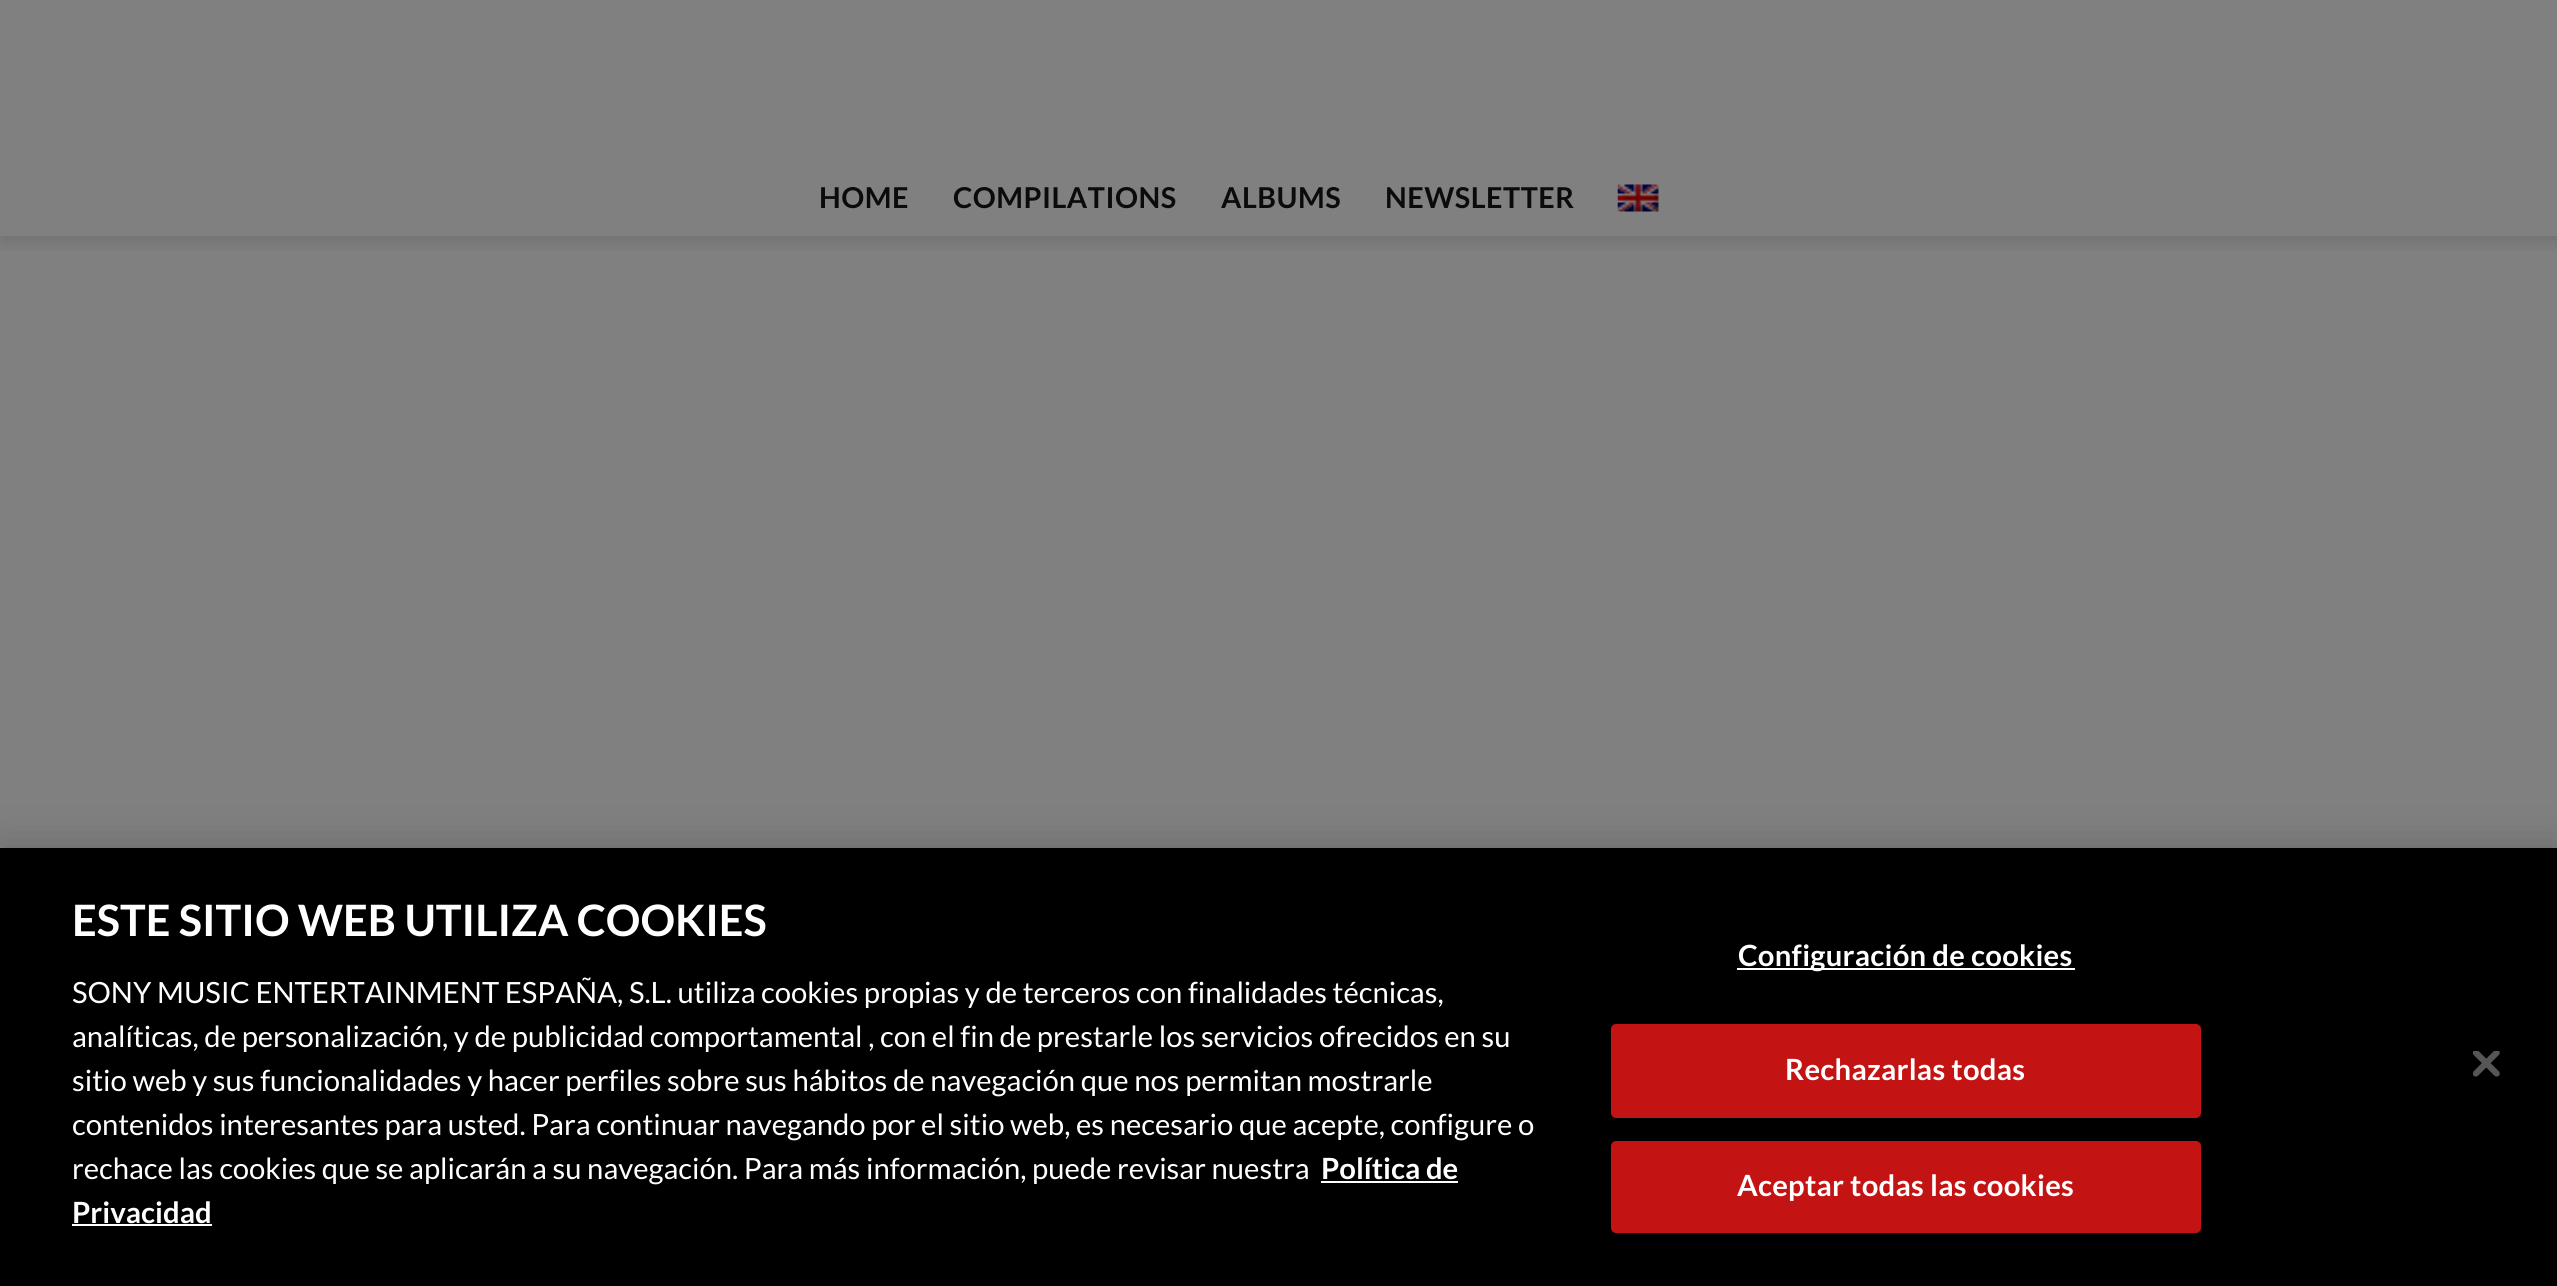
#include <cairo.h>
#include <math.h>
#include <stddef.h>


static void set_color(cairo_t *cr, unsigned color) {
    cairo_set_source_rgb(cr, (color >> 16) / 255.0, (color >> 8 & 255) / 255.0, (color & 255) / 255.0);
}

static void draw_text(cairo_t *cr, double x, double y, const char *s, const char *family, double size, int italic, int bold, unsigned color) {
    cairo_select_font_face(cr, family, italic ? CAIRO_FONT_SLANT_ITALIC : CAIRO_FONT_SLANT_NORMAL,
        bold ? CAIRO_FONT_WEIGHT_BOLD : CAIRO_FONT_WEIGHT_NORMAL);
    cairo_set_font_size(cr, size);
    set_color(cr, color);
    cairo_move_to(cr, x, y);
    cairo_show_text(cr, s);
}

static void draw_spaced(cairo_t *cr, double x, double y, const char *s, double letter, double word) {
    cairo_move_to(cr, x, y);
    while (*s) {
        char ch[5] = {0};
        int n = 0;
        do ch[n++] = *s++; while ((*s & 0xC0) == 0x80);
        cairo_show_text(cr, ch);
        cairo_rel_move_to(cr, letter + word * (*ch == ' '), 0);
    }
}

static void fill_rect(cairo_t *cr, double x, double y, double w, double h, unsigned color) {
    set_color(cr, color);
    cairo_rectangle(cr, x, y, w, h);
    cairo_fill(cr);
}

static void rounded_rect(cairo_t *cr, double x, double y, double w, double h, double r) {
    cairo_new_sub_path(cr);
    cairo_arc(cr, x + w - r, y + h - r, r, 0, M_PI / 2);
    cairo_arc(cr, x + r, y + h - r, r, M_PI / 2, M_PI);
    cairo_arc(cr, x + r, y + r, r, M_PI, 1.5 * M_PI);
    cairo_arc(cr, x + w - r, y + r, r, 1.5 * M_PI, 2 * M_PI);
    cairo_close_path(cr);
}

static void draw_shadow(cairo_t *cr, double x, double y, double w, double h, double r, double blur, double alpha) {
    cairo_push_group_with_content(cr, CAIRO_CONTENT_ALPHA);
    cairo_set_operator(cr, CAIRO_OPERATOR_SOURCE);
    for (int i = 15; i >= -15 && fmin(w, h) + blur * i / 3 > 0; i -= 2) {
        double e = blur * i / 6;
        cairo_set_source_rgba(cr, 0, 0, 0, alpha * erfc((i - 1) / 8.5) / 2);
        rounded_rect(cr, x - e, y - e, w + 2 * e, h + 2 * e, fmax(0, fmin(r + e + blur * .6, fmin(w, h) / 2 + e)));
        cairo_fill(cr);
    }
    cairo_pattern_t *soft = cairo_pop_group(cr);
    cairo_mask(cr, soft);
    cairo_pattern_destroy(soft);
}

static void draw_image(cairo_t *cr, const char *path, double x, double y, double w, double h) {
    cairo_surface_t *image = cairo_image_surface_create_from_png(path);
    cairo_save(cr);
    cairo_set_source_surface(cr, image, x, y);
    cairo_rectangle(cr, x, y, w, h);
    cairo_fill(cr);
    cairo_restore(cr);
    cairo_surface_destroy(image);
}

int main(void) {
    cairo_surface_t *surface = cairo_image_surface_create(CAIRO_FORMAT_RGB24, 2557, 1286);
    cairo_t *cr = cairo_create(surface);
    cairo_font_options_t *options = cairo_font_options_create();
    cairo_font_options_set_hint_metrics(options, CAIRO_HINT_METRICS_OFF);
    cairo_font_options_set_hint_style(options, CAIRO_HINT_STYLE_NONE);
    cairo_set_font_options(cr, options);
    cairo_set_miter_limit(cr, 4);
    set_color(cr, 0x808080);
    cairo_paint(cr);
    cairo_save(cr);
    cairo_rectangle(cr, 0, 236, 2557, 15);
    cairo_clip(cr);
    set_color(cr, 0x000000);
    draw_shadow(cr, 2, 2, 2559, 237, 0, 11, 0.15);
    cairo_restore(cr);
    cairo_select_font_face(cr, "Lato", CAIRO_FONT_SLANT_NORMAL, CAIRO_FONT_WEIGHT_BOLD);
    cairo_set_font_size(cr, 28.75);
    set_color(cr, 0x0B0B0B);
    draw_spaced(cr, 819, 208, "HOME", 0.5, 0);
    draw_spaced(cr, 953, 208, "COMPILATIONS", 0.5, 0);
    draw_spaced(cr, 1221, 208, "ALBUMS", 0.5, 0);
    draw_spaced(cr, 1385, 208, "NEWSLETTER", 0.5, 0);
    draw_image(cr, "assets/img1.png", 1617, 184, 42, 28);
    set_color(cr, 0x000000);
    draw_shadow(cr, 0, 848, 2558, 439, 0, 20, 0.2);
    fill_rect(cr, 0, 848, 2557, 438, 0x000000);
    draw_text(cr, 72, 936, "ESTE SITIO WEB UTILIZA COOKIES", "Lato", 43.25, 0, 1, 0xFFFFFF);
    draw_text(cr, 72, 1003, "SONY MUSIC ENTERTAINMENT ESPAÑA, S.L. utiliza cookies propias y de terceros con finalidades técnicas,", "Lato", 29.25, 0, 0, 0xFFFFFF);
    draw_text(cr, 72, 1047, "analíticas, de personalización, y de publicidad comportamental , con el fin de prestarle los servicios ofrecidos en su", "Lato", 29.25, 0, 0, 0xFFFFFF);
    draw_text(cr, 72, 1091, "sitio web y sus funcionalidades y hacer perfiles sobre sus hábitos de navegación que nos permitan mostrarle", "Lato", 29.25, 0, 0, 0xFFFFFF);
    draw_text(cr, 72, 1135, "contenidos interesantes para usted. Para continuar navegando por el sitio web, es necesario que acepte, configure o", "Lato", 29.25, 0, 0, 0xFFFFFF);
    draw_text(cr, 72, 1179, "rechace las cookies que se aplicarán a su navegación. Para más información, puede revisar nuestra", "Lato", 29.25, 0, 0, 0xFFFFFF);
    draw_text(cr, 1321, 1179, "Política de", "Lato", 29.25, 0, 1, 0xFFFFFF);
    fill_rect(cr, 1321, 1181, 137, 2, 0xFFFFFF);
    draw_text(cr, 72, 1223, "Privacidad", "Lato", 29.25, 0, 1, 0xFFFFFF);
    fill_rect(cr, 72, 1224, 140, 2, 0xFFFFFF);
    fill_rect(cr, 1737, 968, 338, 2, 0xFFFFFF);
    draw_spaced(cr, 1738, 966, "Configuración de cookies", 0.25, 0);
    set_color(cr, 0xC31313);
    rounded_rect(cr, 1612, 1025, 588, 92, 4);
    cairo_fill_preserve(cr);
    cairo_stroke(cr);
    set_color(cr, 0xFFFFFF);
    draw_spaced(cr, 1785, 1080, "Rechazarlas todas", 0.25, 0);
    set_color(cr, 0xC31313);
    rounded_rect(cr, 1612, 1142, 588, 90, 4);
    cairo_fill_preserve(cr);
    cairo_stroke(cr);
    set_color(cr, 0xFFFFFF);
    draw_spaced(cr, 1737, 1196, "Aceptar todas las cookies", 0.25, 0);
    draw_image(cr, "assets/img2.png", 2473, 1051, 27, 26);
    cairo_surface_write_to_png(surface, "output.png");
    cairo_font_options_destroy(options);
    cairo_destroy(cr);
    cairo_surface_destroy(surface);
    return 0;
}
